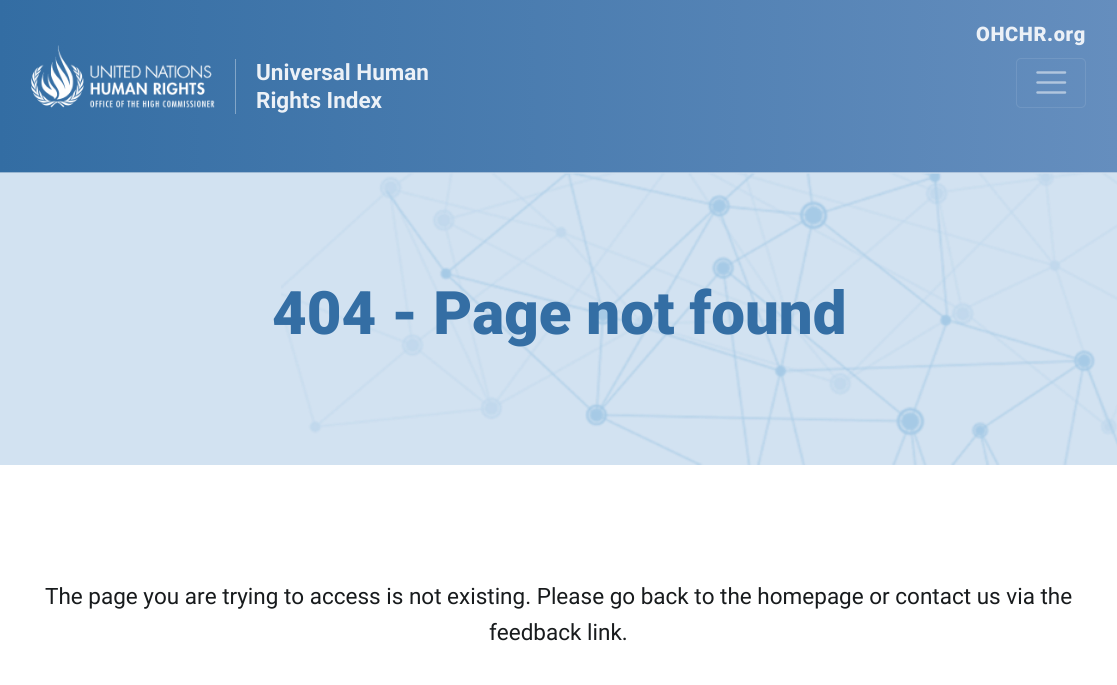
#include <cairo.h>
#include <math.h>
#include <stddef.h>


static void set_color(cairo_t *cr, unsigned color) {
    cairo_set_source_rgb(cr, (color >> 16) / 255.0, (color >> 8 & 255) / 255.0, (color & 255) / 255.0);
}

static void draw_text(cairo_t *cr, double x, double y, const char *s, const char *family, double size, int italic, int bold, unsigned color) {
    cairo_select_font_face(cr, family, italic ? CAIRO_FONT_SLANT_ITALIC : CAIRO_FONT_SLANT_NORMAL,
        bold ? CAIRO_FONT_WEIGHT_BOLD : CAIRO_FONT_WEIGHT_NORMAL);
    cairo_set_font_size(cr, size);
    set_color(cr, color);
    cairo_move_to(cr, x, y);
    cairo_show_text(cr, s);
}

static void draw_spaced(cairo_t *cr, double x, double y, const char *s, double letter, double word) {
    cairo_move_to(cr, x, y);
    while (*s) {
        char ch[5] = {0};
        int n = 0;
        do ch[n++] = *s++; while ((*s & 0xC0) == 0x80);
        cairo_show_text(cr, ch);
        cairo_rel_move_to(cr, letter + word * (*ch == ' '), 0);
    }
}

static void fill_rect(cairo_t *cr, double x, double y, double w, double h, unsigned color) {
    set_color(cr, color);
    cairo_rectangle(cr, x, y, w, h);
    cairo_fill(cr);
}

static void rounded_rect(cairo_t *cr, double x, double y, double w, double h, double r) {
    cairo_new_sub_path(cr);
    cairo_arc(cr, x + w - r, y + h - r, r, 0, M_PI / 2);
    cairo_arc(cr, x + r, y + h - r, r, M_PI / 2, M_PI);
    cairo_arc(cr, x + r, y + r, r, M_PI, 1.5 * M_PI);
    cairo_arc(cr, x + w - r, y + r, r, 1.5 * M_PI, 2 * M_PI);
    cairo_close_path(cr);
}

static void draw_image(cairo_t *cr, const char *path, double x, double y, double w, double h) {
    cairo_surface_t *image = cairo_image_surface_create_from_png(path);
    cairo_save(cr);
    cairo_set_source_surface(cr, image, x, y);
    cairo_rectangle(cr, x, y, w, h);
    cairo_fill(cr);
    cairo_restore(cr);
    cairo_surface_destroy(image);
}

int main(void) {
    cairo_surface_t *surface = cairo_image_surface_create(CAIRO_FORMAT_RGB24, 1117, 685);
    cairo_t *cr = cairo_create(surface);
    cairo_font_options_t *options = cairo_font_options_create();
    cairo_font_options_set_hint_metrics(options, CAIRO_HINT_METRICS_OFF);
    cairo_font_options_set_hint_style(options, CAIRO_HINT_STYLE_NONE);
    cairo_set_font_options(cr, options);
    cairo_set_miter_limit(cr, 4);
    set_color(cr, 0xFFFFFF);
    cairo_paint(cr);
    draw_image(cr, "assets/img1.png", 0, 0, 1117, 173);
    cairo_select_font_face(cr, "Roboto Black", CAIRO_FONT_SLANT_NORMAL, CAIRO_FONT_WEIGHT_NORMAL);
    cairo_set_font_size(cr, 20);
    set_color(cr, 0xECF1F7);
    draw_spaced(cr, 976, 41, "OHCHR.org", 0.6, 0);
    draw_image(cr, "assets/img2.png", 31, 45, 184, 63);
    fill_rect(cr, 235, 59, 1, 55, 0x83A6C8);
    draw_text(cr, 256, 80, "Universal Human", "Roboto", 22.5, 0, 1, 0xECF1F7);
    draw_text(cr, 256, 108, "Rights Index", "Roboto", 22.5, 0, 1, 0xECF1F7);
    rounded_rect(cr, 1016.5, 58.5, 69, 49, 4.5);
    cairo_set_source_rgba(cr, 1, 1, 1, 0.1);
    cairo_set_line_width(cr, 1);
    cairo_stroke(cr);
    cairo_new_path(cr);
    cairo_move_to(cr, 1037.5, 72.5);
    cairo_line_to(cr, 1065, 72.5);
    cairo_move_to(cr, 1037.5, 82.5);
    cairo_line_to(cr, 1065, 82.5);
    cairo_move_to(cr, 1037.5, 92.5);
    cairo_line_to(cr, 1065, 92.5);
    set_color(cr, 0xB1C6DE);
    cairo_set_line_width(cr, 2.5);
    cairo_set_line_cap(cr, CAIRO_LINE_CAP_ROUND);
    cairo_stroke(cr);
    fill_rect(cr, 0, 173, 1117, 292, 0xD2E2F1);
    draw_image(cr, "assets/img3.png", 281, 172, 836, 293);
    draw_text(cr, 272, 334, "404 - Page not found", "Roboto Black", 60, 0, 0, 0x346EA4);
    draw_text(cr, 45, 604, "The page you are trying to access is not existing. Please go back to the homepage or contact us via the", "Roboto", 22.5, 0, 0, 0x181B1D);
    draw_text(cr, 489, 640, "feedback link.", "Roboto", 22.5, 0, 0, 0x181B1D);
    cairo_surface_write_to_png(surface, "output.png");
    cairo_font_options_destroy(options);
    cairo_destroy(cr);
    cairo_surface_destroy(surface);
    return 0;
}
